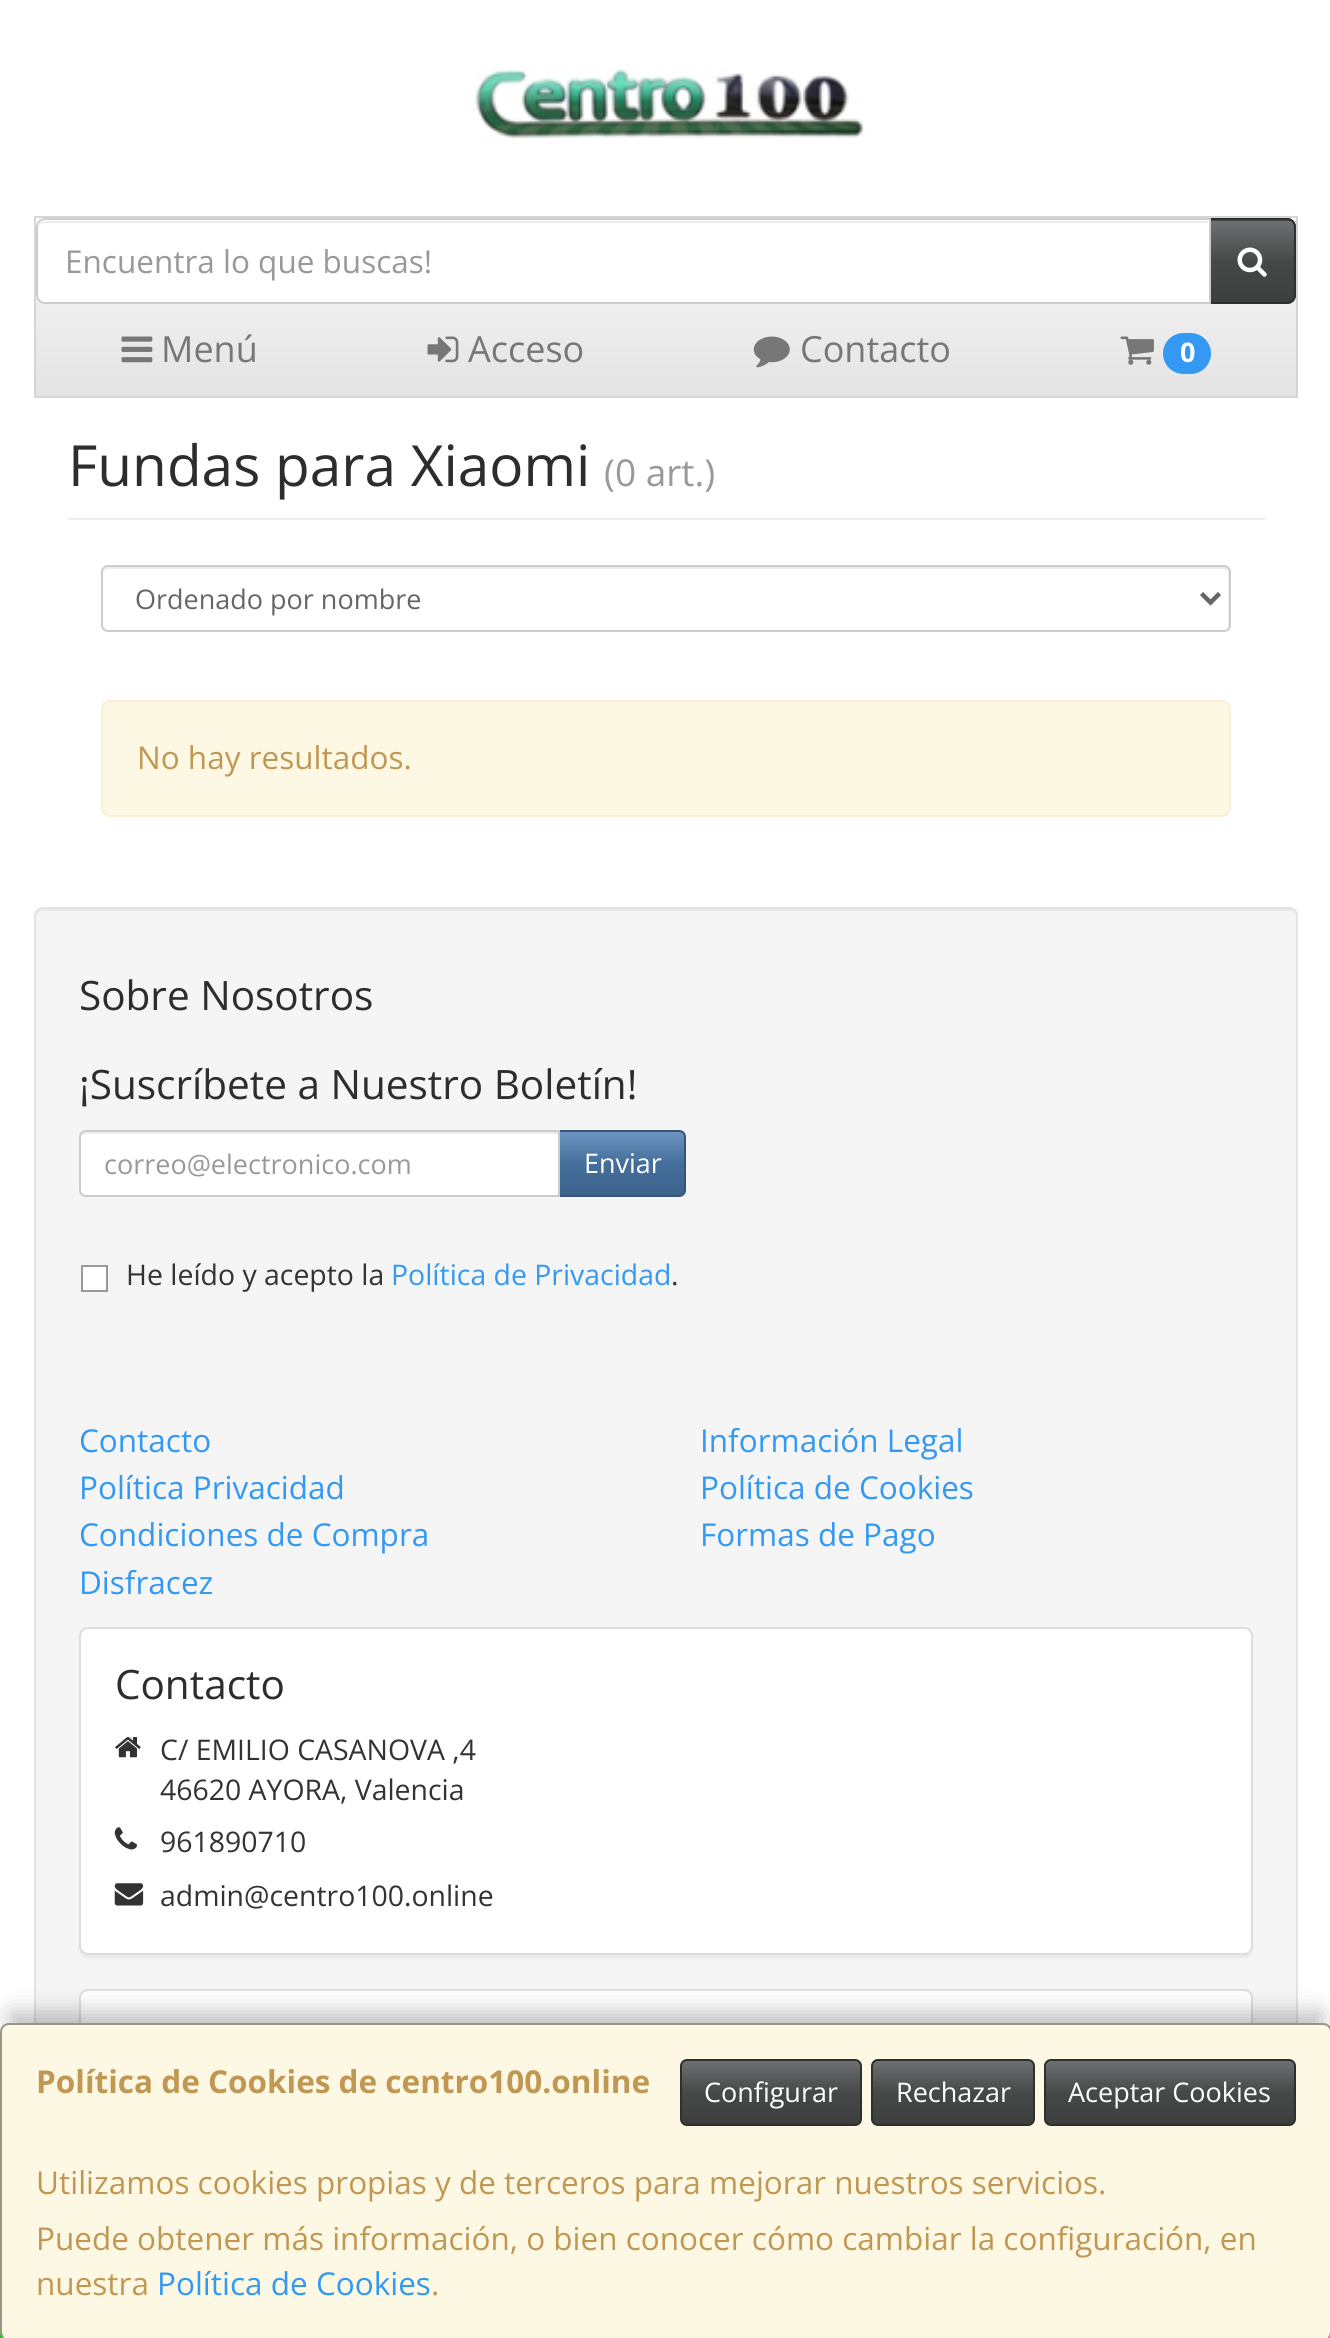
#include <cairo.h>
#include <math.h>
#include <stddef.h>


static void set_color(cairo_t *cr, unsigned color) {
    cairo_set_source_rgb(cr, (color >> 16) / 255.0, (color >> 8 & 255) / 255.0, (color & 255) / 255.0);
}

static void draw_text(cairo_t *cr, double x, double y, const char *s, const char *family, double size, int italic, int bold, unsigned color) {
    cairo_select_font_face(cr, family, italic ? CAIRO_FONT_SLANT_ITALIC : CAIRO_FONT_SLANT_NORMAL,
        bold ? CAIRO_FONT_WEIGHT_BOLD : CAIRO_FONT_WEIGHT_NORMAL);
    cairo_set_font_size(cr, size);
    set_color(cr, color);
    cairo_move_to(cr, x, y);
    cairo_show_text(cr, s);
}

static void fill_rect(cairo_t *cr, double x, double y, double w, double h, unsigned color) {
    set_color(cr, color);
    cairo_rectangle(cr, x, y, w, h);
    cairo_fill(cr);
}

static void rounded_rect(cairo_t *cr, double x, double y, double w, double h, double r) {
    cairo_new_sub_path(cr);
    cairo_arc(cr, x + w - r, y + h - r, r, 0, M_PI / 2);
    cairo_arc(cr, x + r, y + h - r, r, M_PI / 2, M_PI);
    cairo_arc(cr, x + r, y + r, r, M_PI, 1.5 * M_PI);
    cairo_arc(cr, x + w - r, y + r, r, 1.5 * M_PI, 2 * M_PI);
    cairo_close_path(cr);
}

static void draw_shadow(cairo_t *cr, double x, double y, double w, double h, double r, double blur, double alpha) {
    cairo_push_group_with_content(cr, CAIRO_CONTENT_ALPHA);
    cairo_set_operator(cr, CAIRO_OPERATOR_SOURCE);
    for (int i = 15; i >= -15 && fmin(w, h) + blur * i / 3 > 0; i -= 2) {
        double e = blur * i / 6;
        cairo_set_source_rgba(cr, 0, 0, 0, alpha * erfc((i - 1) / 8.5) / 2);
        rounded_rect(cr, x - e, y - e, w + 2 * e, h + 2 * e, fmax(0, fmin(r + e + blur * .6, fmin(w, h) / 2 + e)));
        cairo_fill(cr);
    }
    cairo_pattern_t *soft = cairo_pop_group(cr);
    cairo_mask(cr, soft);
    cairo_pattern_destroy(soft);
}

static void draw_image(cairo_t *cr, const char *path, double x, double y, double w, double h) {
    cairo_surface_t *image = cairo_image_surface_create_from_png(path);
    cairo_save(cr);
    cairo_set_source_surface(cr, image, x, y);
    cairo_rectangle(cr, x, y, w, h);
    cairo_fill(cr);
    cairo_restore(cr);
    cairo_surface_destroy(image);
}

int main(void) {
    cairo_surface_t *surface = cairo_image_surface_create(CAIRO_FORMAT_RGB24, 1330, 2338);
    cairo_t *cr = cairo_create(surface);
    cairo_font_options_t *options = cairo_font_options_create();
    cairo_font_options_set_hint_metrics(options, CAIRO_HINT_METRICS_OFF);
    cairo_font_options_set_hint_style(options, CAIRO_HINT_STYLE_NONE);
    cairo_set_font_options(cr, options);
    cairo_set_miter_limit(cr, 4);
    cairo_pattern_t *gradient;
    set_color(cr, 0x1EE832);
    cairo_paint(cr);
    set_color(cr, 0x000000);
    draw_shadow(cr, 0, 0, 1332, 2324, 0, 17, 0.75);
    fill_rect(cr, 0, 0, 1330, 2032, 0xFFFFFF);
    draw_image(cr, "assets/img1.png", 471, 66, 394, 74);
    gradient = cairo_pattern_create_linear(666, 218, 666, 396);
    cairo_pattern_add_color_stop_rgba(gradient, 0, 1, 1, 1, 1);
    cairo_pattern_add_color_stop_rgba(gradient, 0.5, 0.933, 0.933, 0.933, 1);
    cairo_pattern_add_color_stop_rgba(gradient, 1, 0.894, 0.894, 0.894, 1);
    cairo_set_source(cr, gradient);
    cairo_pattern_destroy(gradient);
    cairo_rectangle(cr, 36, 231, 1260, 165);
    cairo_fill(cr);
    cairo_rectangle(cr, 35, 217, 1262, 180);
    set_color(cr, 0xD5D5D5);
    cairo_stroke(cr);
    set_color(cr, 0x474949);
    cairo_new_path(cr);
    cairo_move_to(cr, 1208, 218);
    cairo_line_to(cr, 1287, 218);
    cairo_curve_to(cr, 1292, 218, 1296, 222, 1296, 227);
    cairo_line_to(cr, 1296, 295);
    cairo_curve_to(cr, 1296, 300, 1292, 304, 1287, 304);
    cairo_line_to(cr, 1208, 304);
    cairo_close_path(cr);
    cairo_fill(cr);
    cairo_save(cr);
    cairo_new_path(cr);
    cairo_move_to(cr, 1208, 218);
    cairo_line_to(cr, 1287, 218);
    cairo_curve_to(cr, 1292, 218, 1296, 222, 1296, 227);
    cairo_line_to(cr, 1296, 295);
    cairo_curve_to(cr, 1296, 300, 1292, 304, 1287, 304);
    cairo_line_to(cr, 1208, 304);
    cairo_close_path(cr);
    cairo_clip(cr);
    gradient = cairo_pattern_create_linear(1252, 221, 1252, 302);
    cairo_pattern_add_color_stop_rgba(gradient, 0, 0.427, 0.439, 0.439, 1);
    cairo_pattern_add_color_stop_rgba(gradient, 0.5, 0.278, 0.286, 0.286, 1);
    cairo_pattern_add_color_stop_rgba(gradient, 1, 0.239, 0.247, 0.247, 1);
    cairo_set_source(cr, gradient);
    cairo_pattern_destroy(gradient);
    cairo_rectangle(cr, 1211, 221, 83, 81);
    cairo_fill(cr);
    cairo_restore(cr);
    cairo_new_path(cr);
    cairo_move_to(cr, 1209, 219);
    cairo_line_to(cr, 1287, 219);
    cairo_curve_to(cr, 1291.5, 219, 1295, 222.5, 1295, 227);
    cairo_line_to(cr, 1295, 295);
    cairo_curve_to(cr, 1295, 299.5, 1291.5, 303, 1287, 303);
    cairo_line_to(cr, 1209, 303);
    cairo_close_path(cr);
    set_color(cr, 0x2E2F2F);
    cairo_stroke(cr);
    set_color(cr, 0xFFFFFF);
    cairo_new_path(cr);
    cairo_move_to(cr, 45, 218);
    cairo_line_to(cr, 1211, 218);
    cairo_line_to(cr, 1211, 304);
    cairo_line_to(cr, 45, 304);
    cairo_curve_to(cr, 40, 304, 36, 300, 36, 295);
    cairo_line_to(cr, 36, 227);
    cairo_curve_to(cr, 36, 222, 40, 218, 45, 218);
    cairo_close_path(cr);
    cairo_fill(cr);
    set_color(cr, 0xECECEC);
    cairo_new_path(cr);
    cairo_move_to(cr, 45, 223);
    cairo_line_to(cr, 1208, 223);
    cairo_line_to(cr, 1208, 221);
    cairo_line_to(cr, 45, 221);
    cairo_curve_to(cr, 40, 221, 38, 226, 38, 230);
    cairo_curve_to(cr, 38, 226, 41, 223, 45, 223);
    cairo_close_path(cr);
    cairo_fill(cr);
    cairo_new_path(cr);
    cairo_move_to(cr, 45, 219);
    cairo_line_to(cr, 1210, 219);
    cairo_line_to(cr, 1210, 303);
    cairo_line_to(cr, 45, 303);
    cairo_curve_to(cr, 40.5, 303, 37, 299.5, 37, 295);
    cairo_line_to(cr, 37, 227);
    cairo_curve_to(cr, 37, 222.5, 40.5, 219, 45, 219);
    cairo_close_path(cr);
    set_color(cr, 0xCCCCCC);
    cairo_stroke(cr);
    draw_text(cr, 65, 273, "Encuentra lo que buscas!", "Open Sans", 31.5, 0, 0, 0x999999);
    draw_image(cr, "assets/img2.png", 1237, 247, 30, 30);
    draw_image(cr, "assets/img3.png", 121, 336, 32, 27);
    draw_text(cr, 161, 362, "Menú", "Open Sans", 36, 0, 0, 0x777777);
    draw_image(cr, "assets/img4.png", 427, 336, 32, 27);
    draw_text(cr, 468, 362, "Acceso", "Open Sans", 36, 0, 0, 0x777777);
    draw_image(cr, "assets/img5.png", 753, 336, 37, 32);
    draw_text(cr, 800, 362, "Contacto", "Open Sans", 36, 0, 0, 0x777777);
    draw_image(cr, "assets/img6.png", 1120, 336, 34, 29);
    set_color(cr, 0x3399F3);
    rounded_rect(cr, 1163, 333, 48, 41, 20.5);
    cairo_fill(cr);
    draw_text(cr, 1180, 362, "0", "Open Sans", 27, 0, 1, 0xFFFFFF);
    fill_rect(cr, 68, 518, 1197, 2, 0xEEEEEE);
    draw_text(cr, 68, 486, "Fundas para Xiaomi", "Open Sans", 56.75, 0, 0, 0x2D2D2D);
    draw_text(cr, 604, 486, "(0 art.)", "Open Sans", 37, 0, 0, 0x999999);
    set_color(cr, 0xECECEC);
    cairo_new_path(cr);
    cairo_move_to(cr, 108, 569);
    cairo_line_to(cr, 1224, 569);
    cairo_curve_to(cr, 1226, 569, 1228, 571, 1228, 574);
    cairo_line_to(cr, 1228, 628);
    cairo_curve_to(cr, 1229, 627, 1229, 626, 1229, 625);
    cairo_line_to(cr, 1229, 572);
    cairo_curve_to(cr, 1229, 569, 1227, 567, 1224, 567);
    cairo_line_to(cr, 109, 567);
    cairo_curve_to(cr, 106, 567, 104, 569, 104, 572);
    cairo_line_to(cr, 104, 574);
    cairo_curve_to(cr, 104, 571, 106, 569, 108, 569);
    cairo_close_path(cr);
    cairo_fill(cr);
    rounded_rect(cr, 102, 566, 1128, 65, 6);
    set_color(cr, 0xCCCCCC);
    cairo_stroke(cr);
    cairo_new_path(cr);
    cairo_move_to(cr, 1201.5, 593.5);
    cairo_line_to(cr, 1210.5, 602.5);
    cairo_line_to(cr, 1219.5, 593.5);
    set_color(cr, 0x666666);
    cairo_set_line_width(cr, 4.5);
    cairo_stroke(cr);
    draw_text(cr, 135, 609, "Ordenado por nombre", "Open Sans", 27, 0, 0, 0x666666);
    set_color(cr, 0xFCF8E3);
    rounded_rect(cr, 102, 701, 1128, 115, 8);
    cairo_fill_preserve(cr);
    set_color(cr, 0xFBEED5);
    cairo_set_line_width(cr, 2);
    cairo_stroke(cr);
    draw_text(cr, 137, 769, "No hay resultados.", "Open Sans", 31.5, 0, 0, 0xC09853);
    set_color(cr, 0xF5F5F5);
    rounded_rect(cr, 34, 907, 1264, 1309, 9);
    cairo_fill(cr);
    set_color(cr, 0xE9E9E9);
    cairo_new_path(cr);
    cairo_move_to(cr, 43, 911);
    cairo_line_to(cr, 1289, 911);
    cairo_curve_to(cr, 1293, 911, 1296, 914, 1296, 918);
    cairo_line_to(cr, 1296, 916);
    cairo_curve_to(cr, 1296, 912, 1293, 909, 1289, 909);
    cairo_line_to(cr, 43, 909);
    cairo_curve_to(cr, 39, 909, 36, 912, 36, 916);
    cairo_line_to(cr, 36, 918);
    cairo_curve_to(cr, 36, 914, 39, 911, 43, 911);
    cairo_close_path(cr);
    cairo_fill(cr);
    rounded_rect(cr, 35, 908, 1262, 1307, 8);
    set_color(cr, 0xE3E3E3);
    cairo_stroke(cr);
    draw_text(cr, 79, 1010, "Sobre Nosotros", "Open Sans", 40.5, 0, 0, 0x2D2D2D);
    draw_text(cr, 79, 1099, "¡Suscríbete a Nuestro Boletín!", "Open Sans", 40.5, 0, 0, 0x2D2D2D);
    gradient = cairo_pattern_create_linear(622, 1132, 622, 1195);
    cairo_pattern_add_color_stop_rgba(gradient, 0, 0.427, 0.58, 0.749, 1);
    cairo_pattern_add_color_stop_rgba(gradient, 0.5, 0.267, 0.431, 0.608, 1);
    cairo_pattern_add_color_stop_rgba(gradient, 1, 0.243, 0.392, 0.553, 1);
    cairo_set_source(cr, gradient);
    cairo_pattern_destroy(gradient);
    cairo_rectangle(cr, 560, 1132, 124, 63);
    cairo_fill(cr);
    cairo_new_path(cr);
    cairo_move_to(cr, 559, 1131);
    cairo_line_to(cr, 679, 1131);
    cairo_curve_to(cr, 682.5, 1131, 685, 1133.5, 685, 1137);
    cairo_line_to(cr, 685, 1190);
    cairo_curve_to(cr, 685, 1193.5, 682.5, 1196, 679, 1196);
    cairo_line_to(cr, 559, 1196);
    cairo_close_path(cr);
    set_color(cr, 0x345578);
    cairo_stroke(cr);
    set_color(cr, 0xFFFFFF);
    cairo_new_path(cr);
    cairo_move_to(cr, 86, 1130);
    cairo_line_to(cr, 560, 1130);
    cairo_line_to(cr, 560, 1197);
    cairo_line_to(cr, 86, 1197);
    cairo_curve_to(cr, 82, 1197, 79, 1194, 79, 1190);
    cairo_line_to(cr, 79, 1137);
    cairo_curve_to(cr, 79, 1133, 82, 1130, 86, 1130);
    cairo_close_path(cr);
    cairo_fill(cr);
    set_color(cr, 0xECECEC);
    cairo_new_path(cr);
    cairo_move_to(cr, 86, 1134);
    cairo_line_to(cr, 558, 1134);
    cairo_line_to(cr, 558, 1132);
    cairo_line_to(cr, 86, 1132);
    cairo_curve_to(cr, 83, 1132, 81, 1134, 81, 1137);
    cairo_line_to(cr, 81, 1138);
    cairo_curve_to(cr, 81, 1136, 83, 1134, 86, 1134);
    cairo_close_path(cr);
    cairo_fill(cr);
    cairo_new_path(cr);
    cairo_move_to(cr, 86, 1131);
    cairo_line_to(cr, 559, 1131);
    cairo_line_to(cr, 559, 1196);
    cairo_line_to(cr, 86, 1196);
    cairo_curve_to(cr, 82.5, 1196, 80, 1193.5, 80, 1190);
    cairo_line_to(cr, 80, 1137);
    cairo_curve_to(cr, 80, 1133.5, 82.5, 1131, 86, 1131);
    cairo_close_path(cr);
    set_color(cr, 0xCCCCCC);
    cairo_stroke(cr);
    draw_text(cr, 104, 1174, "correo@electronico.com", "Open Sans", 27, 0, 0, 0x999999);
    draw_text(cr, 584, 1173, "Enviar", "Open Sans", 27, 0, 0, 0xFFFFFF);
    cairo_rectangle(cr, 82, 1266, 25, 25);
    cairo_fill_preserve(cr);
    set_color(cr, 0x999999);
    cairo_stroke(cr);
    draw_text(cr, 126, 1285, "He leído y acepto la", "Open Sans", 28.4, 0, 0, 0x333333);
    draw_text(cr, 391, 1285, "Política de Privacidad", "Open Sans", 28.4, 0, 0, 0x3399F3);
    draw_text(cr, 671, 1285, ".", "Open Sans", 28.4, 0, 0, 0x333333);
    draw_text(cr, 79, 1452, "Contacto", "Open Sans", 31.5, 0, 0, 0x3399F3);
    draw_text(cr, 700, 1452, "Información Legal", "Open Sans", 31.5, 0, 0, 0x3399F3);
    draw_text(cr, 79, 1499, "Política Privacidad", "Open Sans", 31.5, 0, 0, 0x3399F3);
    draw_text(cr, 700, 1499, "Política de Cookies", "Open Sans", 31.5, 0, 0, 0x3399F3);
    draw_text(cr, 79, 1546, "Condiciones de Compra", "Open Sans", 31.5, 0, 0, 0x3399F3);
    draw_text(cr, 700, 1546, "Formas de Pago", "Open Sans", 31.5, 0, 0, 0x3399F3);
    draw_text(cr, 79, 1594, "Disfracez", "Open Sans", 31.5, 0, 0, 0x3399F3);
    set_color(cr, 0x000000);
    draw_shadow(cr, 79, 1629, 1174, 329, 9, 1, 0.05);
    set_color(cr, 0xFFFFFF);
    rounded_rect(cr, 80, 1628, 1172, 326, 8);
    cairo_fill_preserve(cr);
    set_color(cr, 0xDDDDDD);
    cairo_stroke(cr);
    draw_text(cr, 115, 1699, "Contacto", "Open Sans", 40.5, 0, 0, 0x2D2D2D);
    draw_image(cr, "assets/img7.png", 115, 1737, 26, 21);
    draw_text(cr, 160, 1760, "C/ EMILIO CASANOVA ,4", "Open Sans", 28.4, 0, 0, 0x333333);
    draw_text(cr, 160, 1800, "46620 AYORA, Valencia", "Open Sans", 28.4, 0, 0, 0x333333);
    draw_image(cr, "assets/img8.png", 114, 1827, 23, 23);
    draw_text(cr, 160, 1852, "961890710", "Open Sans", 28.4, 0, 0, 0x333333);
    draw_image(cr, "assets/img9.png", 114, 1883, 30, 23);
    draw_text(cr, 160, 1906, "admin@centro100.online", "Open Sans", 28.4, 0, 0, 0x333333);
    set_color(cr, 0xFFFFFF);
    rounded_rect(cr, 80, 1990, 1172, 180, 8);
    cairo_fill_preserve(cr);
    set_color(cr, 0xDDDDDD);
    cairo_stroke(cr);
    set_color(cr, 0x000000);
    draw_shadow(cr, 11, 2012, 1310, 294, 0, 11, 0.25);
    set_color(cr, 0xFCF8E3);
    rounded_rect(cr, 0, 2023, 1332, 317, 9);
    cairo_fill(cr);
    cairo_set_source_rgba(cr, 0, 0, 0, 0.4);
    cairo_set_fill_rule(cr, CAIRO_FILL_RULE_EVEN_ODD);
    cairo_new_path(cr);
    cairo_move_to(cr, 9, 2023);
    cairo_line_to(cr, 1323, 2023);
    cairo_curve_to(cr, 1328, 2023, 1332, 2027, 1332, 2032);
    cairo_line_to(cr, 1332, 2331);
    cairo_curve_to(cr, 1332, 2336, 1328, 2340, 1323, 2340);
    cairo_line_to(cr, 9, 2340);
    cairo_curve_to(cr, 4, 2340, 0, 2336, 0, 2331);
    cairo_line_to(cr, 0, 2032);
    cairo_curve_to(cr, 0, 2027, 4, 2023, 9, 2023);
    cairo_close_path(cr);
    cairo_move_to(cr, 9, 2025);
    cairo_line_to(cr, 1323, 2025);
    cairo_curve_to(cr, 1327, 2025, 1330, 2028, 1330, 2032);
    cairo_line_to(cr, 1330, 2331);
    cairo_curve_to(cr, 1330, 2336, 1327, 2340, 1323, 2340);
    cairo_line_to(cr, 9, 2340);
    cairo_curve_to(cr, 5, 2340, 2, 2336, 2, 2331);
    cairo_line_to(cr, 2, 2032);
    cairo_curve_to(cr, 2, 2028, 5, 2025, 9, 2025);
    cairo_close_path(cr);
    cairo_fill(cr);
    draw_text(cr, 36, 2093, "Política de Cookies de centro100.online", "Open Sans", 31.5, 0, 1, 0xC09853);
    gradient = cairo_pattern_create_linear(771, 2061, 771, 2124);
    cairo_pattern_add_color_stop_rgba(gradient, 0, 0.427, 0.439, 0.439, 1);
    cairo_pattern_add_color_stop_rgba(gradient, 0.5, 0.278, 0.286, 0.286, 1);
    cairo_pattern_add_color_stop_rgba(gradient, 1, 0.239, 0.247, 0.247, 1);
    cairo_set_source(cr, gradient);
    cairo_pattern_destroy(gradient);
    cairo_rectangle(cr, 682, 2061, 178, 63);
    cairo_fill(cr);
    rounded_rect(cr, 681, 2060, 180, 65, 6);
    set_color(cr, 0x2E2F2F);
    cairo_stroke(cr);
    draw_text(cr, 704, 2102, "Configurar", "Open Sans", 27, 0, 0, 0xFFFFFF);
    gradient = cairo_pattern_create_linear(953, 2061, 953, 2124);
    cairo_pattern_add_color_stop_rgba(gradient, 0, 0.427, 0.439, 0.439, 1);
    cairo_pattern_add_color_stop_rgba(gradient, 0.5, 0.278, 0.286, 0.286, 1);
    cairo_pattern_add_color_stop_rgba(gradient, 1, 0.239, 0.247, 0.247, 1);
    cairo_set_source(cr, gradient);
    cairo_pattern_destroy(gradient);
    cairo_rectangle(cr, 873, 2061, 160, 63);
    cairo_fill(cr);
    rounded_rect(cr, 872, 2060, 162, 65, 6);
    set_color(cr, 0x2E2F2F);
    cairo_stroke(cr);
    draw_text(cr, 896, 2102, "Rechazar", "Open Sans", 27, 0, 0, 0xFFFFFF);
    gradient = cairo_pattern_create_linear(1170, 2061, 1170, 2124);
    cairo_pattern_add_color_stop_rgba(gradient, 0, 0.427, 0.439, 0.439, 1);
    cairo_pattern_add_color_stop_rgba(gradient, 0.5, 0.278, 0.286, 0.286, 1);
    cairo_pattern_add_color_stop_rgba(gradient, 1, 0.239, 0.247, 0.247, 1);
    cairo_set_source(cr, gradient);
    cairo_pattern_destroy(gradient);
    cairo_rectangle(cr, 1046, 2061, 248, 63);
    cairo_fill(cr);
    rounded_rect(cr, 1045, 2060, 250, 65, 6);
    set_color(cr, 0x2E2F2F);
    cairo_stroke(cr);
    draw_text(cr, 1068, 2102, "Aceptar Cookies", "Open Sans", 27, 0, 0, 0xFFFFFF);
    draw_text(cr, 36, 2194, "Utilizamos cookies propias y de terceros para mejorar nuestros servicios.", "Open Sans", 31.5, 0, 0, 0xC09853);
    draw_text(cr, 36, 2250, "Puede obtener más información, o bien conocer cómo cambiar la configuración, en", "Open Sans", 31.5, 0, 0, 0xC09853);
    draw_text(cr, 36, 2295, "nuestra", "Open Sans", 31.5, 0, 0, 0xC09853);
    draw_text(cr, 157, 2295, "Política de Cookies", "Open Sans", 31.5, 0, 0, 0x3399F3);
    draw_text(cr, 431, 2295, ".", "Open Sans", 31.5, 0, 0, 0xC09853);
    cairo_surface_write_to_png(surface, "output.png");
    cairo_font_options_destroy(options);
    cairo_destroy(cr);
    cairo_surface_destroy(surface);
    return 0;
}
